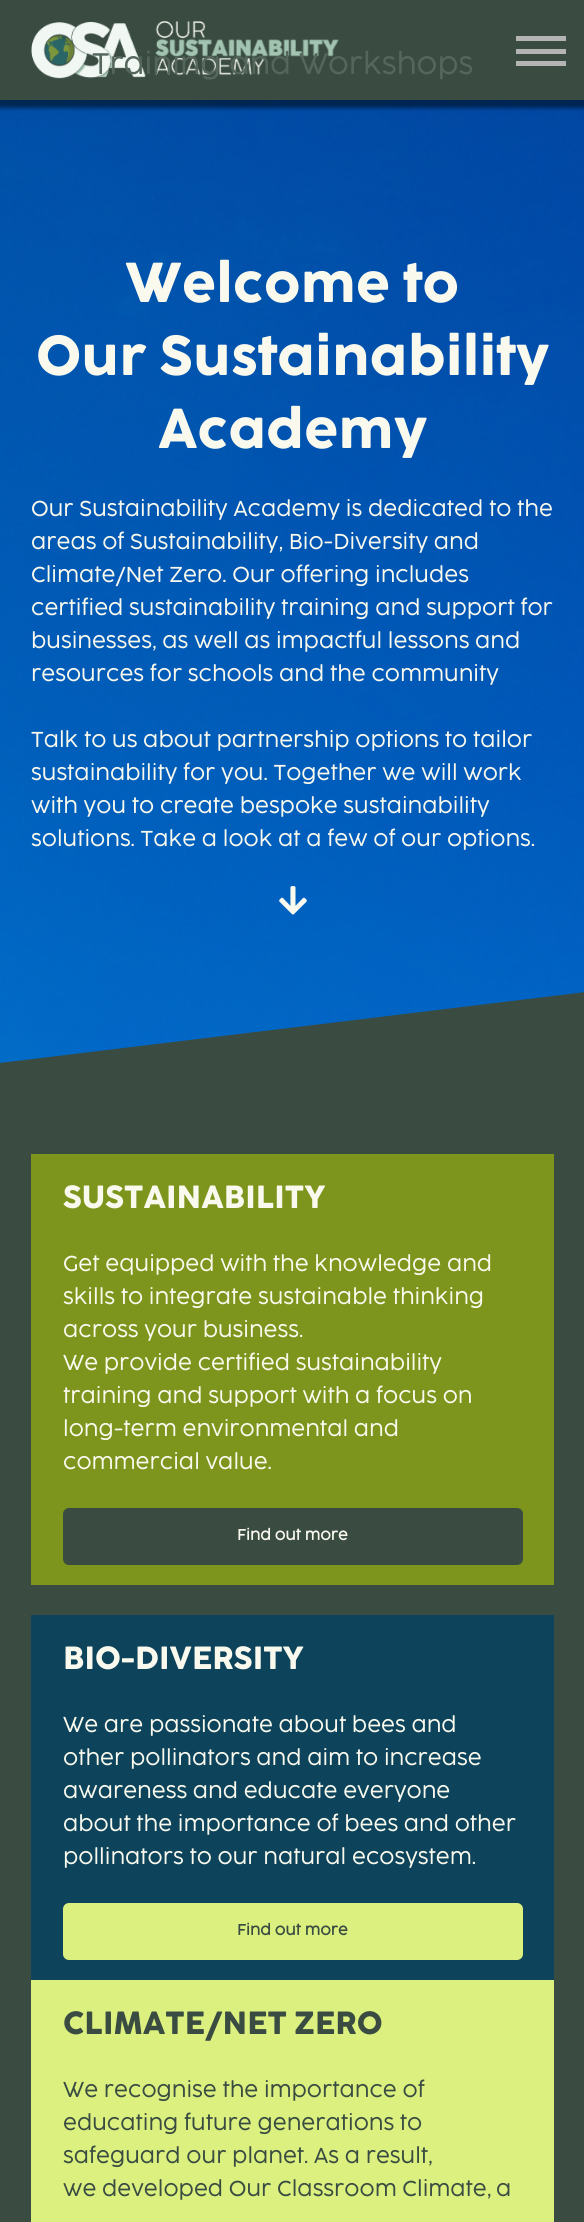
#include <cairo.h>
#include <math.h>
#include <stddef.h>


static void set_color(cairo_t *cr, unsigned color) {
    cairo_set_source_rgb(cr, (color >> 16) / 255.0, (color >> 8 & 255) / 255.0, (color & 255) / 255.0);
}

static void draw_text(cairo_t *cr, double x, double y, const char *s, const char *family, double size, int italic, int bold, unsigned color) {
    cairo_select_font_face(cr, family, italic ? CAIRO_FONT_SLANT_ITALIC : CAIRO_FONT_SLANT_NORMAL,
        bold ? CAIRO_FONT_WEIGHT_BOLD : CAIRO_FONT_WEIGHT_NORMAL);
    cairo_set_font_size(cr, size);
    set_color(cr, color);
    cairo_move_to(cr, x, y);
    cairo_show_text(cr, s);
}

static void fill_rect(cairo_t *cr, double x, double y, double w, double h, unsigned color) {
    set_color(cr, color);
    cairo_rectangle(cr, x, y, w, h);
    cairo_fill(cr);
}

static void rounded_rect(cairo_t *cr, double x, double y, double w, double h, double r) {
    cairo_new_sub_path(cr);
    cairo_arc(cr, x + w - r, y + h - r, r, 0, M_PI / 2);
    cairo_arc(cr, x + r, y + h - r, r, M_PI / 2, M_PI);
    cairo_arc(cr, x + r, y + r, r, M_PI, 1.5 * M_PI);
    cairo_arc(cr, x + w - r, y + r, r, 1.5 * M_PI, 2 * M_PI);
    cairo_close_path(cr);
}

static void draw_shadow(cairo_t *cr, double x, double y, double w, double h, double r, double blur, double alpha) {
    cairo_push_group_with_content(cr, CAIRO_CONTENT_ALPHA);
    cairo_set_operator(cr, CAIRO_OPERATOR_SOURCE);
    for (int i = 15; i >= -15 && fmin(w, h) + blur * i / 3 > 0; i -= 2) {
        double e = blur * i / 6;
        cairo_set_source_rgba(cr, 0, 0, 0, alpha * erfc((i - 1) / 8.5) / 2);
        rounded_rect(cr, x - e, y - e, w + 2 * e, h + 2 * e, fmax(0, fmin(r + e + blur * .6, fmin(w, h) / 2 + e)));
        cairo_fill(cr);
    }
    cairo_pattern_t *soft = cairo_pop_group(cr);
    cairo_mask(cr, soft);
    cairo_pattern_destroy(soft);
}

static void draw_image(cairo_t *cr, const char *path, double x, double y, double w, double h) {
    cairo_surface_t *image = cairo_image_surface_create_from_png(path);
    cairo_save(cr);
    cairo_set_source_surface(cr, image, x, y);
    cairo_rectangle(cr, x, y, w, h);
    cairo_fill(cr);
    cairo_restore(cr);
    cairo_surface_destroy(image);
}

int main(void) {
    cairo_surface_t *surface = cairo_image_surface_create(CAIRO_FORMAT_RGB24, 584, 2222);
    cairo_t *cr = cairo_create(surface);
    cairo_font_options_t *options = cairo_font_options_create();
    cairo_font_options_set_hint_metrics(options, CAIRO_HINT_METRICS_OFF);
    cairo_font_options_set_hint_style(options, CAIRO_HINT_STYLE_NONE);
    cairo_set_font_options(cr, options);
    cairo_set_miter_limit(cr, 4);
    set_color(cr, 0xFFFFFF);
    cairo_paint(cr);
    draw_image(cr, "assets/img2.png", 0, 100, 584, 963);
    set_color(cr, 0x000000);
    draw_shadow(cr, -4, 0, 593, 108, 0, 2, 0.5);
    fill_rect(cr, 0, 0, 584, 100, 0x3A4C42);
    draw_image(cr, "assets/img1.png", 31, 21, 308, 58);
    draw_text(cr, 92, 74, "Training and Workshops", "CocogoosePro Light", 27.5, 0, 0, 0x55665C);
    fill_rect(cr, 516, 61, 50, 5, 0xB4B4B4);
    fill_rect(cr, 516, 36, 50, 5, 0xB4B4B4);
    fill_rect(cr, 516, 49, 50, 5, 0xB4B4B4);
    draw_text(cr, 125, 302, "Welcome to", "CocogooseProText", 56, 0, 1, 0xF9F9EE);
    draw_text(cr, 36, 375, "Our Sustainability", "CocogooseProText", 56, 0, 1, 0xF9F9EE);
    draw_text(cr, 158, 448, "Academy", "CocogooseProText", 56, 0, 1, 0xF9F9EE);
    draw_text(cr, 31, 516, "Our Sustainability Academy is dedicated to the", "CocogoosePro Light", 20, 0, 0, 0xF9F9EE);
    draw_text(cr, 31, 549, "areas of Sustainability, Bio-Diversity and", "CocogoosePro Light", 20, 0, 0, 0xF9F9EE);
    draw_text(cr, 31, 582, "Climate/Net Zero. Our offering includes", "CocogoosePro Light", 20, 0, 0, 0xF9F9EE);
    draw_text(cr, 31, 615, "certified sustainability training and support for", "CocogoosePro Light", 20, 0, 0, 0xF9F9EE);
    draw_text(cr, 31, 648, "businesses, as well as impactful lessons and", "CocogoosePro Light", 20, 0, 0, 0xF9F9EE);
    draw_text(cr, 31, 681, "resources for schools and the community", "CocogoosePro Light", 20, 0, 0, 0xF9F9EE);
    draw_text(cr, 31, 747, "Talk to us about partnership options to tailor", "CocogoosePro Light", 20, 0, 0, 0xF9F9EE);
    draw_text(cr, 31, 780, "sustainability for you. Together we will work", "CocogoosePro Light", 20, 0, 0, 0xF9F9EE);
    draw_text(cr, 31, 813, "with you to create bespoke sustainability", "CocogoosePro Light", 20, 0, 0, 0xF9F9EE);
    draw_text(cr, 31, 846, "solutions. Take a look at a few of our options.", "CocogoosePro Light", 20, 0, 0, 0xF9F9EE);
    draw_image(cr, "assets/img3.png", 279, 886, 28, 29);
    set_color(cr, 0x3A4C42);
    cairo_new_path(cr);
    cairo_move_to(cr, -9, 1064);
    cairo_line_to(cr, -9, 1068);
    cairo_line_to(cr, 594, 1068);
    cairo_line_to(cr, 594, 991);
    cairo_close_path(cr);
    cairo_fill(cr);
    fill_rect(cr, 0, 1068, 584, 1154, 0x3A4C42);
    fill_rect(cr, 31, 1154, 523, 431, 0x7D951C);
    draw_text(cr, 63, 1208, "SUSTAINABILITY", "CocogooseProText", 32, 0, 1, 0xF9F9EE);
    draw_text(cr, 63, 1271, "Get equipped with the knowledge and", "CocogoosePro Light", 20, 0, 0, 0xF9F9EE);
    draw_text(cr, 63, 1304, "skills to integrate sustainable thinking", "CocogoosePro Light", 20, 0, 0, 0xF9F9EE);
    draw_text(cr, 63, 1337, "across your business.", "CocogoosePro Light", 20, 0, 0, 0xF9F9EE);
    draw_text(cr, 63, 1370, "We provide certified sustainability", "CocogoosePro Light", 20, 0, 0, 0xF9F9EE);
    draw_text(cr, 63, 1403, "training and support with a focus on", "CocogoosePro Light", 20, 0, 0, 0xF9F9EE);
    draw_text(cr, 63, 1436, "long-term environmental and", "CocogoosePro Light", 20, 0, 0, 0xF9F9EE);
    draw_text(cr, 63, 1469, "commercial value.", "CocogoosePro Light", 20, 0, 0, 0xF9F9EE);
    set_color(cr, 0x3A4C42);
    rounded_rect(cr, 63, 1508, 460, 57, 6);
    cairo_fill(cr);
    draw_text(cr, 237, 1540, "Find out more", "CocogoosePro", 14, 0, 1, 0xF9F9EE);
    fill_rect(cr, 31, 1615, 523, 365, 0x0D445B);
    draw_text(cr, 63, 1669, "BIO-DIVERSITY", "CocogooseProText", 32, 0, 1, 0xF9F9EE);
    draw_text(cr, 63, 1732, "We are passionate about bees and", "CocogoosePro Light", 20, 0, 0, 0xF9F9EE);
    draw_text(cr, 63, 1765, "other pollinators and aim to increase", "CocogoosePro Light", 20, 0, 0, 0xF9F9EE);
    draw_text(cr, 63, 1798, "awareness and educate everyone", "CocogoosePro Light", 20, 0, 0, 0xF9F9EE);
    draw_text(cr, 63, 1831, "about the importance of bees and other", "CocogoosePro Light", 20, 0, 0, 0xF9F9EE);
    draw_text(cr, 63, 1864, "pollinators to our natural ecosystem.", "CocogoosePro Light", 20, 0, 0, 0xF9F9EE);
    set_color(cr, 0xDBF07E);
    rounded_rect(cr, 63, 1903, 460, 57, 6);
    cairo_fill(cr);
    draw_text(cr, 237, 1935, "Find out more", "CocogoosePro", 14, 0, 1, 0x3A4C42);
    fill_rect(cr, 31, 1980, 523, 242, 0xDBF07E);
    draw_text(cr, 63, 2034, "CLIMATE/NET ZERO", "CocogooseProText", 32, 0, 1, 0x3A4C42);
    draw_text(cr, 63, 2097, "We recognise the importance of", "CocogoosePro Light", 20, 0, 0, 0x3A4C42);
    draw_text(cr, 63, 2130, "educating future generations to", "CocogoosePro Light", 20, 0, 0, 0x3A4C42);
    draw_text(cr, 63, 2163, "safeguard our planet. As a result,", "CocogoosePro Light", 20, 0, 0, 0x3A4C42);
    draw_text(cr, 63, 2196, "we developed Our Classroom Climate,", "CocogoosePro Light", 20, 0, 0, 0x3A4C42);
    draw_text(cr, 496, 2196, "a", "CocogoosePro Light", 20, 0, 0, 0x3A4C42);
    cairo_surface_write_to_png(surface, "output.png");
    cairo_font_options_destroy(options);
    cairo_destroy(cr);
    cairo_surface_destroy(surface);
    return 0;
}
